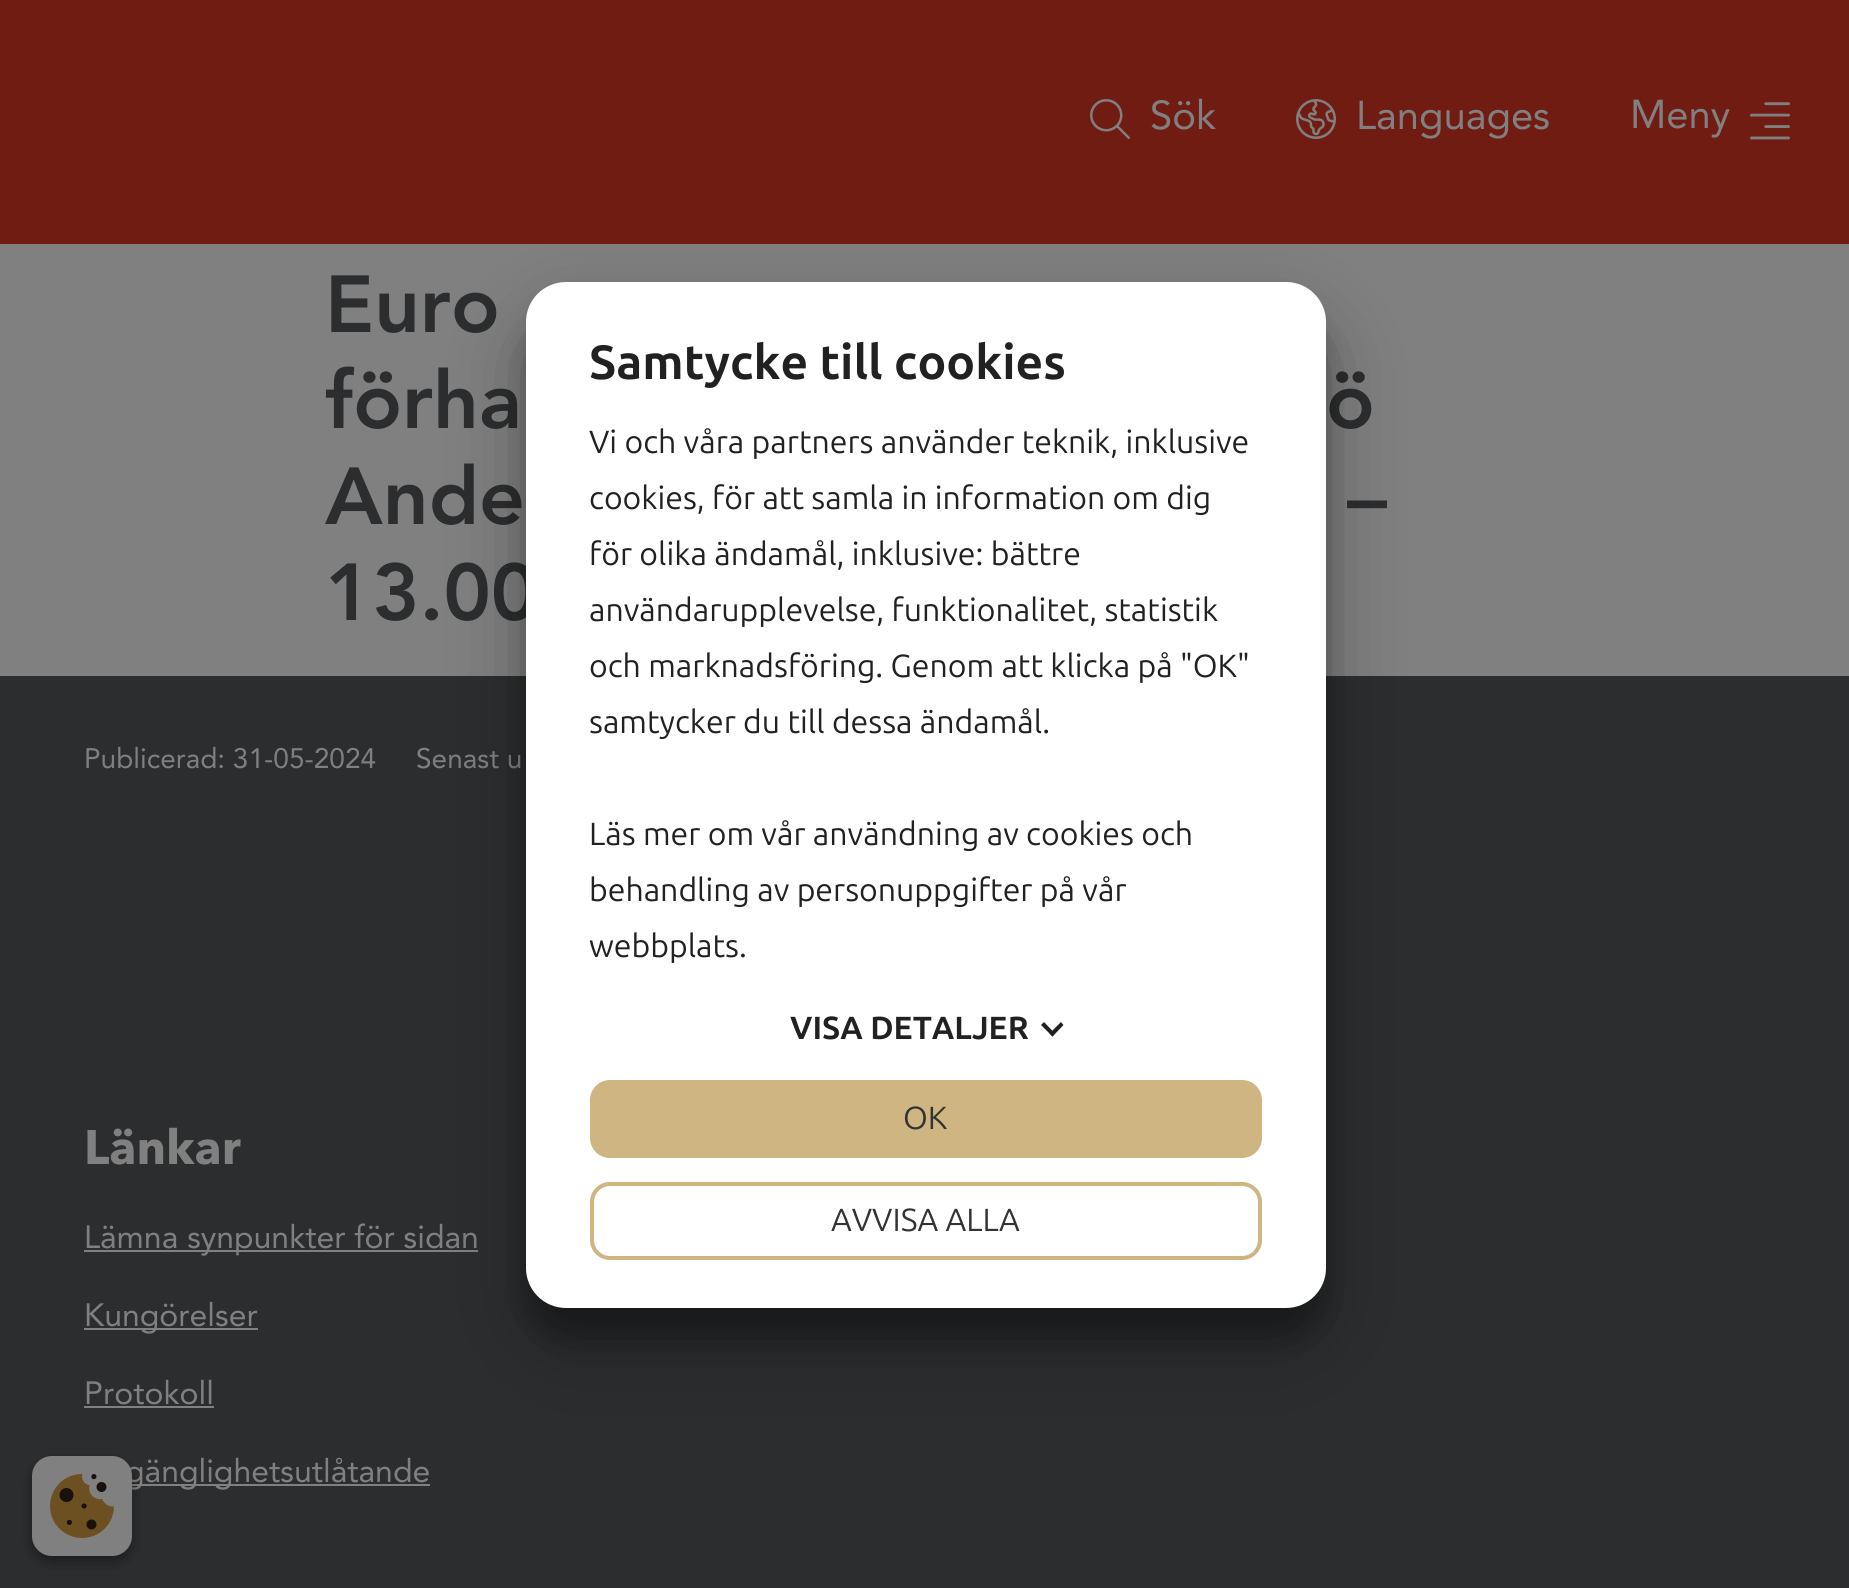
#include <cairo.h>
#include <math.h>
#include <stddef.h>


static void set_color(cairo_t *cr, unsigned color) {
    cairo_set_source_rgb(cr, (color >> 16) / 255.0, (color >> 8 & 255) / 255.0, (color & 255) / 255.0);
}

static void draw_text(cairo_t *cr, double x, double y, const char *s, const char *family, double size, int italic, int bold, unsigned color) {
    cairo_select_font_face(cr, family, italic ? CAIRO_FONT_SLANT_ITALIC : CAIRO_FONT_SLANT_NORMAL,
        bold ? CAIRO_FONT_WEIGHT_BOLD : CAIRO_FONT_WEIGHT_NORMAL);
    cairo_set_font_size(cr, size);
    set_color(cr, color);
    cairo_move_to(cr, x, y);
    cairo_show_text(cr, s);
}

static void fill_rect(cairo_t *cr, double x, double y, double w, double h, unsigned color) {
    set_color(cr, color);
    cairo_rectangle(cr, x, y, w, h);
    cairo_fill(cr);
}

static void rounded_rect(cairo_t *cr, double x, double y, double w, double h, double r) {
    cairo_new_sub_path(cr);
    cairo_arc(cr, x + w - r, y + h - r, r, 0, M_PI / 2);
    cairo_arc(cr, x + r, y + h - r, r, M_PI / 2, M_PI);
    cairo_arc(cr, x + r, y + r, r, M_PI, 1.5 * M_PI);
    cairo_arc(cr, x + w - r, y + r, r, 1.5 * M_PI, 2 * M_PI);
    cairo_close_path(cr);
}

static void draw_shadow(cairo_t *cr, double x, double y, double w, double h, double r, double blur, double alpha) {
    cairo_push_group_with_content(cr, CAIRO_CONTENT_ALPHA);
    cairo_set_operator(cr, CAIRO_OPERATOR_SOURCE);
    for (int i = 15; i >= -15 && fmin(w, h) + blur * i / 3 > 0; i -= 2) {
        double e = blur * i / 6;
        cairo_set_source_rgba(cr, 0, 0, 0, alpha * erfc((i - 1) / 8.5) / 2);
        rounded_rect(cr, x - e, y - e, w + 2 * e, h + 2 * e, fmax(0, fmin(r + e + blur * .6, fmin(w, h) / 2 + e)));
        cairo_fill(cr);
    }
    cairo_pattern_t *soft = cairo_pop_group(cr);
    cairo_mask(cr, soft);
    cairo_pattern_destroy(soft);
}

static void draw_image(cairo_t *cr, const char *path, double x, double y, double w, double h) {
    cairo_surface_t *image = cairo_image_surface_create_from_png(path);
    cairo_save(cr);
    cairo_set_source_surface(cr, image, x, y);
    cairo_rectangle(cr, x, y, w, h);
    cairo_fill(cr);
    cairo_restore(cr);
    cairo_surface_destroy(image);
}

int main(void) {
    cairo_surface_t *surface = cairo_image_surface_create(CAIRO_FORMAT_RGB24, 1849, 1588);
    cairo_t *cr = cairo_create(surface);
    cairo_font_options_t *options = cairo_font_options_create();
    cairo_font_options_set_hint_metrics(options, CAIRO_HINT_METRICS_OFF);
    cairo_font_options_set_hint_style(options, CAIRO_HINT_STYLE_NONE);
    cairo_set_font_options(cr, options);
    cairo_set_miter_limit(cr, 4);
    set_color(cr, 0x808080);
    cairo_paint(cr);
    fill_rect(cr, 0, 0, 1849, 244, 0x711C12);
    draw_image(cr, "assets/img1.png", 1090, 99, 40, 40);
    draw_text(cr, 1150, 129, "Sök", "Avenir", 40, 0, 0, 0x808080);
    draw_image(cr, "assets/img2.png", 1296, 99, 40, 40);
    draw_text(cr, 1356, 129, "Languages", "Avenir", 40, 0, 0, 0x808080);
    draw_text(cr, 1630, 128, "Meny", "Avenir", 40, 0, 0, 0x808080);
    draw_image(cr, "assets/img3.png", 1750, 102, 40, 38);
    draw_text(cr, 325, 332, "Euro", "Avenir Black", 80, 0, 0, 0x2B2D2E);
    draw_text(cr, 325, 428, "förha", "Avenir Black", 80, 0, 0, 0x2B2D2E);
    draw_text(cr, 1326, 428, "ö", "Avenir Black", 80, 0, 0, 0x2B2D2E);
    draw_text(cr, 325, 524, "Ande", "Avenir Black", 80, 0, 0, 0x2B2D2E);
    draw_text(cr, 1347, 524, "–", "Avenir Black", 80, 0, 0, 0x2B2D2E);
    draw_text(cr, 325, 620, "13.00", "Avenir Black", 80, 0, 0, 0x2B2D2E);
    fill_rect(cr, 0, 676, 1849, 912, 0x2B2D2E);
    draw_text(cr, 84, 768, "Publicerad: 31-05-2024", "Avenir", 28, 0, 0, 0x808080);
    draw_text(cr, 416, 768, "Senast u", "Avenir", 28, 0, 0, 0x808080);
    draw_text(cr, 84, 1164, "Länkar", "Avenir Next", 48, 0, 1, 0x808080);
    fill_rect(cr, 84, 1250, 394, 2, 0x808080);
    draw_text(cr, 84, 1248, "Lämna synpunkter för sidan", "Avenir", 32, 0, 0, 0x808080);
    fill_rect(cr, 84, 1328, 174, 2, 0x808080);
    draw_text(cr, 84, 1326, "Kungörelser", "Avenir", 32, 0, 0, 0x808080);
    draw_text(cr, 84, 1404, "Protokoll", "Avenir", 32, 0, 0, 0x808080);
    fill_rect(cr, 84, 1406, 130, 2, 0x808080);
    fill_rect(cr, 132, 1484, 298, 2, 0x808080);
    draw_text(cr, 125, 1482, "gänglighetsutlåtande", "Avenir", 32, 0, 0, 0x808080);
    set_color(cr, 0x000000);
    draw_shadow(cr, 526, 312, 800, 1026, 40, 12, 0.22);
    draw_shadow(cr, 526, 320, 800, 1026, 40, 38, 0.3);
    set_color(cr, 0xFFFFFF);
    rounded_rect(cr, 526, 282, 800, 1026, 40);
    cairo_fill(cr);
    draw_text(cr, 589, 379, "Samtycke till cookies", "Ubuntu", 48, 0, 1, 0x212121);
    draw_text(cr, 589, 453, "Vi och våra partners använder teknik, inklusive", "Ubuntu", 32, 0, 0, 0x212121);
    draw_text(cr, 589, 509, "cookies, för att samla in information om dig", "Ubuntu", 32, 0, 0, 0x212121);
    draw_text(cr, 589, 565, "för olika ändamål, inklusive: bättre", "Ubuntu", 32, 0, 0, 0x212121);
    draw_text(cr, 589, 621, "användarupplevelse, funktionalitet, statistik", "Ubuntu", 32, 0, 0, 0x212121);
    draw_text(cr, 589, 677, "och marknadsföring. Genom att klicka på \"OK\"", "Ubuntu", 32, 0, 0, 0x212121);
    draw_text(cr, 589, 733, "samtycker du till dessa ändamål.", "Ubuntu", 32, 0, 0, 0x212121);
    draw_text(cr, 589, 845, "Läs mer om vår användning av cookies och", "Ubuntu", 32, 0, 0, 0x212121);
    draw_text(cr, 589, 901, "behandling av personuppgifter på vår", "Ubuntu", 32, 0, 0, 0x212121);
    draw_text(cr, 589, 957, "webbplats.", "Ubuntu", 32, 0, 0, 0x212121);
    draw_text(cr, 790, 1039, "VISA DETALJER", "Ubuntu", 32, 0, 1, 0x212121);
    cairo_new_path(cr);
    cairo_move_to(cr, 1061, 1022);
    cairo_line_to(cr, 1063.5, 1025);
    cairo_line_to(cr, 1052.5, 1036.5);
    cairo_line_to(cr, 1049.5, 1033.5);
    cairo_close_path(cr);
    cairo_fill(cr);
    cairo_new_path(cr);
    cairo_move_to(cr, 1044, 1022);
    cairo_line_to(cr, 1055, 1033.5);
    cairo_line_to(cr, 1052.5, 1036.5);
    cairo_line_to(cr, 1041, 1025);
    cairo_close_path(cr);
    cairo_fill(cr);
    set_color(cr, 0xCEB582);
    rounded_rect(cr, 592, 1082, 668, 74, 18);
    cairo_fill_preserve(cr);
    cairo_set_line_width(cr, 4);
    cairo_stroke(cr);
    draw_text(cr, 903, 1129, "OK", "Ubuntu", 32, 0, 0, 0x333333);
    rounded_rect(cr, 592, 1184, 668, 74, 18);
    set_color(cr, 0xCEB582);
    cairo_stroke(cr);
    draw_text(cr, 831, 1231, "AVVISA ALLA", "Ubuntu", 32, 0, 0, 0x333333);
    set_color(cr, 0x000000);
    draw_shadow(cr, 32, 1462, 100, 100, 20, 6, 0.23);
    draw_shadow(cr, 32, 1462, 100, 100, 20, 6, 0.16);
    set_color(cr, 0x808080);
    rounded_rect(cr, 32, 1456, 100, 100, 20);
    cairo_fill(cr);
    draw_image(cr, "assets/img4.png", 50, 1474, 64, 64);
    cairo_surface_write_to_png(surface, "output.png");
    cairo_font_options_destroy(options);
    cairo_destroy(cr);
    cairo_surface_destroy(surface);
    return 0;
}
